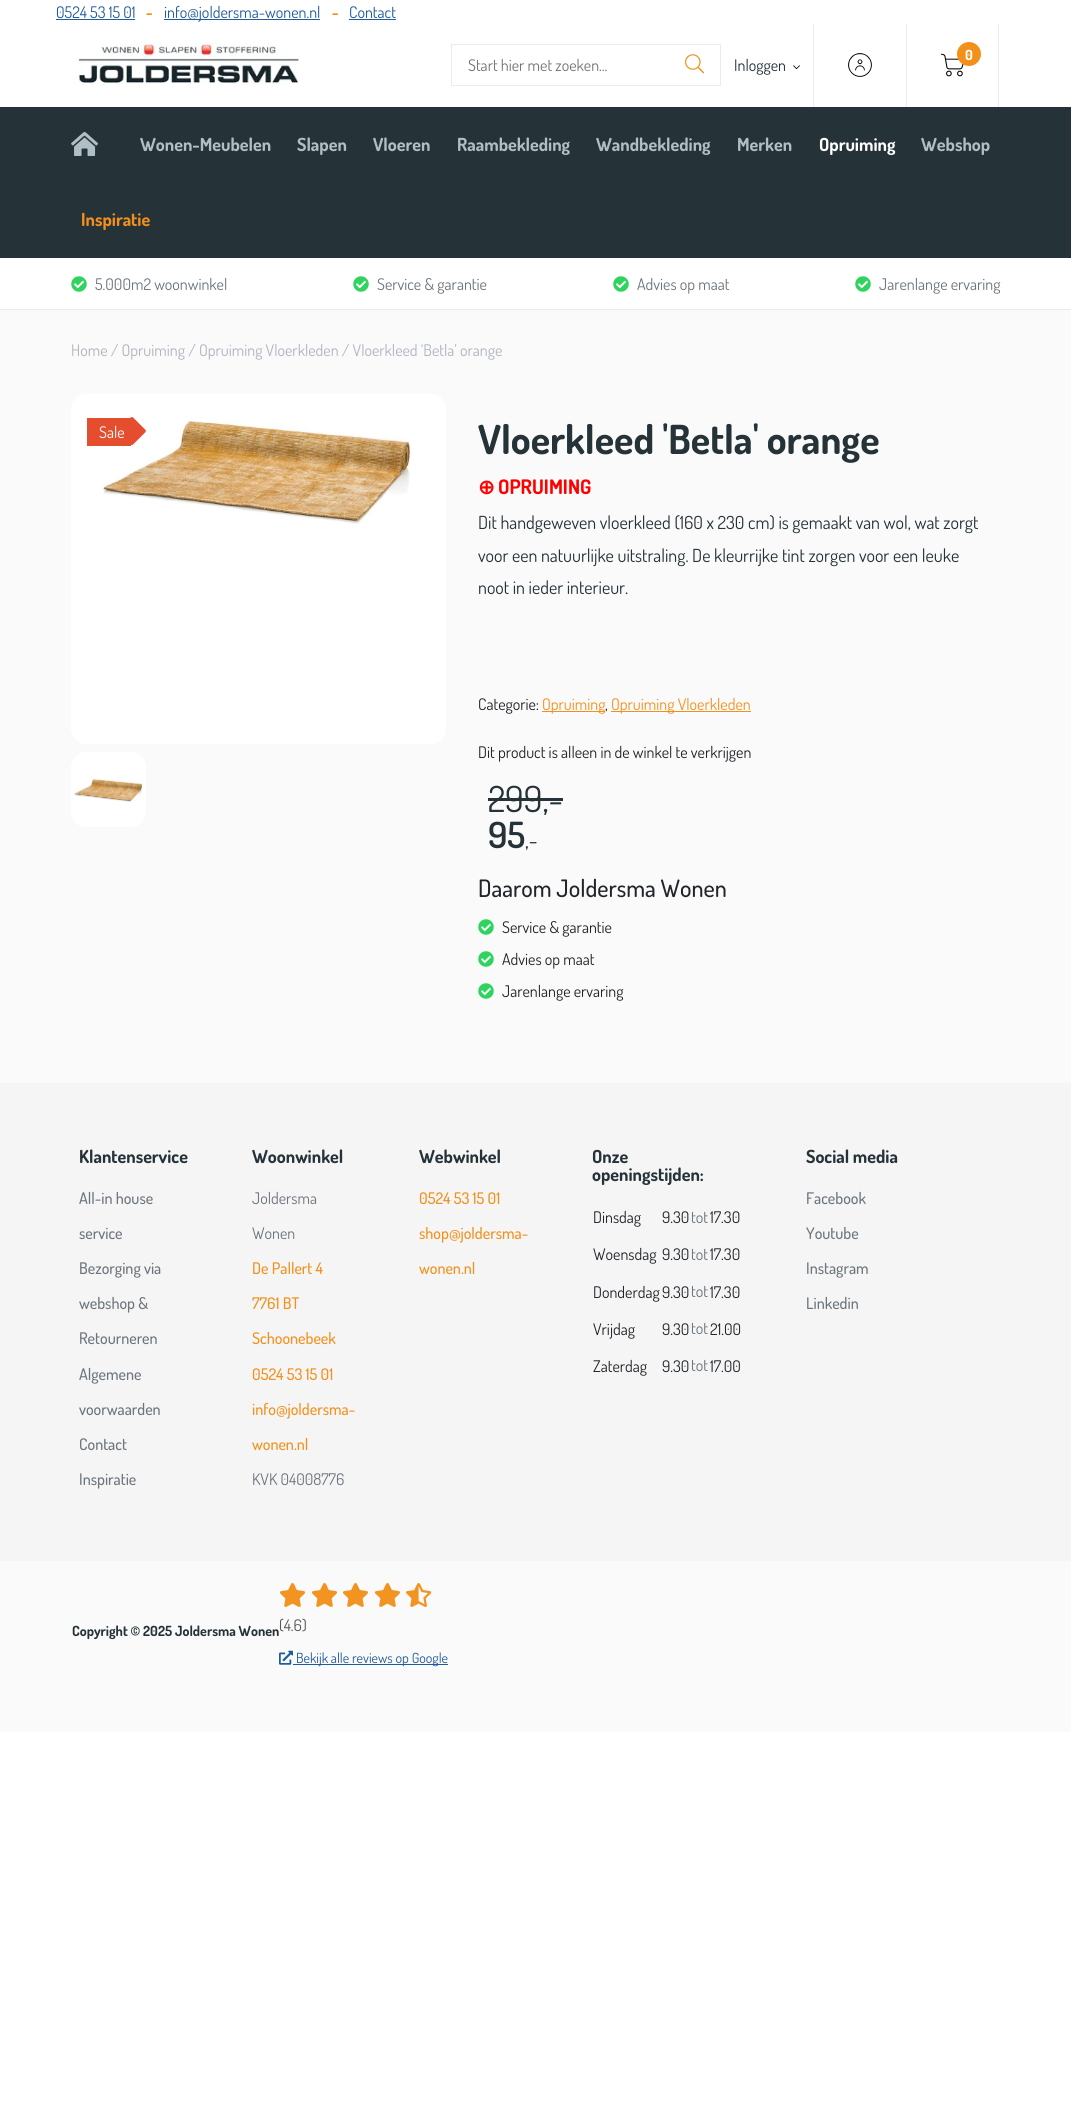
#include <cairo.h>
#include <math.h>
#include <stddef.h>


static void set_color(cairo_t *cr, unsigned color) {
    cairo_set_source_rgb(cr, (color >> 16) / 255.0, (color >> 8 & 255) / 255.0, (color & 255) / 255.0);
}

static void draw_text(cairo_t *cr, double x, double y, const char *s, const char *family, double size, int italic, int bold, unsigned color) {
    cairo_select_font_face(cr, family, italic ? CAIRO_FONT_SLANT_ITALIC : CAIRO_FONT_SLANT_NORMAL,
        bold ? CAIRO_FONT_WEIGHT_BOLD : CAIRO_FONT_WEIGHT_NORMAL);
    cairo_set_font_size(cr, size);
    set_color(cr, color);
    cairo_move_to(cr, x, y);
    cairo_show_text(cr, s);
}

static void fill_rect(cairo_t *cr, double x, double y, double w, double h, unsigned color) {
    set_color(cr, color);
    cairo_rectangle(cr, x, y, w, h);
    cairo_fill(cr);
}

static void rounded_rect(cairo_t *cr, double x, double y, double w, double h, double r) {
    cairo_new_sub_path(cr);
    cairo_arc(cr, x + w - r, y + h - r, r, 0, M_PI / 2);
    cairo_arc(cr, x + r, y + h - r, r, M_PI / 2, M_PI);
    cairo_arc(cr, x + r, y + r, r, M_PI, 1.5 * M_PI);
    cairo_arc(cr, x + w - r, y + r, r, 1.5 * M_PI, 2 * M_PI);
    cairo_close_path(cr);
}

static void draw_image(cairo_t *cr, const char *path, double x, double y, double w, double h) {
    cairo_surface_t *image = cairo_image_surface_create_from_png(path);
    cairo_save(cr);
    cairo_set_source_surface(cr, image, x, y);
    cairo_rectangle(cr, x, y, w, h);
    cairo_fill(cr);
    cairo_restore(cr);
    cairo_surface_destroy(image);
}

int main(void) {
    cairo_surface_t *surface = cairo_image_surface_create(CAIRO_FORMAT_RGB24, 1071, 2101);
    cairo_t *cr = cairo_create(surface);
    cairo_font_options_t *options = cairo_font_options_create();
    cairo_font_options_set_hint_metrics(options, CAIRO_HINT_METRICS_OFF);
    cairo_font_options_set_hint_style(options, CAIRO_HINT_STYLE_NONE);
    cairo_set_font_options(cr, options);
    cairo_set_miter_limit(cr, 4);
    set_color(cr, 0xFFFFFF);
    cairo_paint(cr);
    draw_text(cr, 56, 18, "0524 53 15 01", "Dosis", 16, 0, 0, 0x215B9B);
    fill_rect(cr, 56, 19, 79, 1, 0x215B9B);
    draw_text(cr, 146, 18, "-", "Dosis", 16, 0, 1, 0xF3901C);
    fill_rect(cr, 164, 19, 156, 1, 0x215B9B);
    draw_text(cr, 164, 18, "info@joldersma-wonen.nl", "Dosis", 16, 0, 0, 0x215B9B);
    draw_text(cr, 332, 18, "-", "Dosis", 16, 0, 1, 0xF3901C);
    draw_text(cr, 349, 18, "Contact", "Dosis", 16, 0, 0, 0x215B9B);
    fill_rect(cr, 349, 19, 47, 1, 0x215B9B);
    draw_image(cr, "assets/img1.png", 78, 43, 221, 42);
    fill_rect(cr, 451, 44, 270, 1, 0xE9ECEF);
    fill_rect(cr, 720, 44, 1, 42, 0xE9ECEF);
    fill_rect(cr, 451, 85, 270, 1, 0xE9ECEF);
    draw_image(cr, "assets/img2.png", 685, 54, 20, 20);
    fill_rect(cr, 451, 44, 1, 42, 0xE9ECEF);
    draw_text(cr, 468, 71, "Start hier met zoeken...", "Dosis", 16, 0, 0, 0x757575);
    fill_rect(cr, 906, 24, 1, 83, 0xE9ECEF);
    draw_image(cr, "assets/img3.png", 848, 53, 24, 24);
    fill_rect(cr, 998, 24, 1, 83, 0xE9ECEF);
    draw_image(cr, "assets/img4.png", 941, 53, 23, 24);
    set_color(cr, 0xF3901C);
    cairo_arc(cr, 969, 54, 12, 0, 2 * M_PI);
    cairo_fill(cr);
    draw_text(cr, 965, 60, "0", "Dosis", 14, 0, 1, 0xFFFFFF);
    fill_rect(cr, 813, 24, 1, 83, 0xE9ECEF);
    draw_text(cr, 734, 71, "Inloggen", "Dosis", 16, 0, 0, 0x253338);
    draw_image(cr, "assets/img5.png", 793, 65, 7, 5);
    fill_rect(cr, 0, 107, 1071, 151, 0x253338);
    draw_image(cr, "assets/img6.png", 71, 132, 27, 24);
    draw_text(cr, 140, 151, "Wonen-Meubelen", "Dosis", 18, 0, 1, 0xB0BEC5);
    draw_text(cr, 297, 151, "Slapen", "Dosis", 18, 0, 1, 0xB0BEC5);
    draw_text(cr, 373, 151, "Vloeren", "Dosis", 18, 0, 1, 0xB0BEC5);
    draw_text(cr, 457, 151, "Raambekleding", "Dosis", 18, 0, 1, 0xB0BEC5);
    draw_text(cr, 596, 151, "Wandbekleding", "Dosis", 18, 0, 1, 0xB0BEC5);
    draw_text(cr, 737, 151, "Merken", "Dosis", 18, 0, 1, 0xB0BEC5);
    draw_text(cr, 819, 151, "Opruiming", "Dosis", 18, 0, 1, 0xFFFFFF);
    draw_text(cr, 921, 151, "Webshop", "Dosis", 18, 0, 1, 0xB0BEC5);
    draw_text(cr, 81, 226, "Inspiratie", "Dosis", 18, 0, 1, 0xF3901C);
    fill_rect(cr, 0, 309, 1071, 1, 0xE9ECEF);
    draw_image(cr, "assets/img7.png", 71, 276, 16, 16);
    draw_text(cr, 95, 290, "5.000m2 woonwinkel", "Dosis", 16, 0, 0, 0x6C757D);
    draw_image(cr, "assets/img7.png", 353, 276, 16, 16);
    draw_text(cr, 377, 290, "Service & garantie", "Dosis", 16, 0, 0, 0x6C757D);
    draw_image(cr, "assets/img7.png", 613, 276, 16, 16);
    draw_text(cr, 637, 290, "Advies op maat", "Dosis", 16, 0, 0, 0x6C757D);
    draw_image(cr, "assets/img7.png", 855, 276, 16, 16);
    draw_text(cr, 879, 290, "Jarenlange ervaring", "Dosis", 16, 0, 0, 0x6C757D);
    fill_rect(cr, 0, 310, 1071, 773, 0xFAFAFA);
    draw_text(cr, 71, 356, "Home / Opruiming / Opruiming Vloerkleden / Vloerkleed ‘Betla’ orange", "Dosis", 16, 0, 0, 0xADB5BD);
    set_color(cr, 0xFFFFFF);
    rounded_rect(cr, 71, 394, 375, 350, 15);
    cairo_fill(cr);
    draw_image(cr, "assets/img8.png", 103, 420, 308, 104);
    fill_rect(cr, 87, 418, 44, 28, 0xE44E2E);
    draw_text(cr, 99, 438, "Sale", "Dosis", 16, 0, 0, 0xFFFFFF);
    draw_image(cr, "assets/img9.png", 130, 417, 16, 28);
    rounded_rect(cr, 71, 752, 75, 75, 15);
    cairo_fill(cr);
    draw_image(cr, "assets/img10.png", 74, 779, 68, 23);
    draw_text(cr, 478, 454, "Vloerkleed 'Betla' orange", "Dosis", 40, 0, 1, 0x253338);
    draw_text(cr, 478, 494, "⊕", "DejaVu Sans", 20, 0, 1, 0xFF0000);
    draw_text(cr, 498, 494, "OPRUIMING", "Dosis", 20, 0, 1, 0xFF0000);
    draw_text(cr, 478, 529, "Dit handgeweven vloerkleed (160 x 230 cm) is gemaakt van wol, wat zorgt", "Dosis", 18, 0, 0, 0x253338);
    draw_text(cr, 478, 562, "voor een natuurlijke uitstraling. De kleurrijke tint zorgen voor een leuke", "Dosis", 18, 0, 0, 0x253338);
    draw_text(cr, 478, 594, "noot in ieder interieur.", "Dosis", 18, 0, 0, 0x253338);
    draw_text(cr, 478, 710, "Categorie:", "Dosis", 16, 0, 0, 0x212529);
    fill_rect(cr, 542, 711, 63, 1, 0xF3901C);
    draw_text(cr, 542, 710, "Opruiming", "Dosis", 16, 0, 0, 0xF3901C);
    draw_text(cr, 605, 710, ",", "Dosis", 16, 0, 0, 0x212529);
    fill_rect(cr, 611, 711, 140, 1, 0xF3901C);
    draw_text(cr, 611, 710, "Opruiming Vloerkleden", "Dosis", 16, 0, 0, 0xF3901C);
    draw_text(cr, 478, 758, "Dit product is alleen in de winkel te verkrijgen", "Dosis", 16, 0, 0, 0x212529);
    draw_text(cr, 488, 812, "299,-", "Dosis", 36, 0, 0, 0x253338);
    fill_rect(cr, 488, 798, 75, 3, 0x253338);
    draw_text(cr, 488, 848, "95", "Dosis SemiBold", 36, 0, 0, 0x253338);
    draw_text(cr, 525, 848, ",-", "Dosis", 22, 0, 0, 0x253338);
    draw_text(cr, 478, 897, "Daarom Joldersma Wonen", "Dosis Medium", 24, 0, 0, 0x212529);
    draw_image(cr, "assets/img11.png", 478, 919, 16, 16);
    draw_text(cr, 502, 933, "Service & garantie", "Dosis", 16, 0, 0, 0x212529);
    draw_image(cr, "assets/img11.png", 478, 951, 16, 16);
    draw_text(cr, 502, 965, "Advies op maat", "Dosis", 16, 0, 0, 0x212529);
    draw_image(cr, "assets/img11.png", 478, 983, 16, 16);
    draw_text(cr, 502, 997, "Jarenlange ervaring", "Dosis", 16, 0, 0, 0x212529);
    fill_rect(cr, 0, 1083, 1071, 478, 0xF5F5F5);
    draw_text(cr, 79, 1163, "Klantenservice", "Dosis", 18, 0, 1, 0x253338);
    draw_text(cr, 79, 1204, "All-in house", "Dosis Medium", 16, 0, 0, 0x6C757D);
    draw_text(cr, 79, 1239, "service", "Dosis Medium", 16, 0, 0, 0x6C757D);
    draw_text(cr, 79, 1274, "Bezorging via", "Dosis Medium", 16, 0, 0, 0x6C757D);
    draw_text(cr, 79, 1309, "webshop &", "Dosis Medium", 16, 0, 0, 0x6C757D);
    draw_text(cr, 79, 1344, "Retourneren", "Dosis Medium", 16, 0, 0, 0x6C757D);
    draw_text(cr, 79, 1380, "Algemene", "Dosis Medium", 16, 0, 0, 0x6C757D);
    draw_text(cr, 79, 1415, "voorwaarden", "Dosis Medium", 16, 0, 0, 0x6C757D);
    draw_text(cr, 79, 1450, "Contact", "Dosis Medium", 16, 0, 0, 0x6C757D);
    draw_text(cr, 79, 1485, "Inspiratie", "Dosis Medium", 16, 0, 0, 0x6C757D);
    draw_text(cr, 252, 1163, "Woonwinkel", "Dosis", 18, 0, 1, 0x253338);
    draw_text(cr, 252, 1204, "Joldersma", "Dosis", 16, 0, 0, 0x6C757D);
    draw_text(cr, 252, 1239, "Wonen", "Dosis", 16, 0, 0, 0x6C757D);
    draw_text(cr, 252, 1274, "De Pallert 4", "Dosis Medium", 16, 0, 0, 0xF3901C);
    draw_text(cr, 252, 1309, "7761 BT", "Dosis Medium", 16, 0, 0, 0xF3901C);
    draw_text(cr, 252, 1344, "Schoonebeek", "Dosis Medium", 16, 0, 0, 0xF3901C);
    draw_text(cr, 252, 1380, "0524 53 15 01", "Dosis Medium", 16, 0, 0, 0xF3901C);
    draw_text(cr, 252, 1415, "info@joldersma-", "Dosis Medium", 16, 0, 0, 0xF3901C);
    draw_text(cr, 252, 1450, "wonen.nl", "Dosis Medium", 16, 0, 0, 0xF3901C);
    draw_text(cr, 252, 1485, "KVK 04008776", "Dosis", 16, 0, 0, 0x6C757D);
    draw_text(cr, 419, 1163, "Webwinkel", "Dosis", 18, 0, 1, 0x253338);
    draw_text(cr, 419, 1204, "0524 53 15 01", "Dosis Medium", 16, 0, 0, 0xF3901C);
    draw_text(cr, 419, 1239, "shop@joldersma-", "Dosis Medium", 16, 0, 0, 0xF3901C);
    draw_text(cr, 419, 1274, "wonen.nl", "Dosis Medium", 16, 0, 0, 0xF3901C);
    draw_text(cr, 592, 1163, "Onze", "Dosis", 18, 0, 1, 0x253338);
    draw_text(cr, 592, 1181, "openingstijden:", "Dosis", 18, 0, 1, 0x253338);
    draw_text(cr, 593, 1223, "Dinsdag", "Dosis", 16, 0, 0, 0x212529);
    draw_text(cr, 662, 1223, "9.30", "Dosis", 16, 0, 0, 0x212529);
    draw_text(cr, 691, 1223, "tot", "Dosis", 16, 0, 0, 0x6C757D);
    draw_text(cr, 710, 1223, "17.30", "Dosis", 16, 0, 0, 0x212529);
    draw_text(cr, 593, 1260, "Woensdag", "Dosis", 16, 0, 0, 0x212529);
    draw_text(cr, 662, 1260, "9.30", "Dosis", 16, 0, 0, 0x212529);
    draw_text(cr, 691, 1260, "tot", "Dosis", 16, 0, 0, 0x6C757D);
    draw_text(cr, 710, 1260, "17.30", "Dosis", 16, 0, 0, 0x212529);
    draw_text(cr, 593, 1298, "Donderdag", "Dosis", 16, 0, 0, 0x212529);
    draw_text(cr, 662, 1298, "9.30", "Dosis", 16, 0, 0, 0x212529);
    draw_text(cr, 691, 1297, "tot", "Dosis", 16, 0, 0, 0x6C757D);
    draw_text(cr, 710, 1298, "17.30", "Dosis", 16, 0, 0, 0x212529);
    draw_text(cr, 593, 1335, "Vrijdag", "Dosis", 16, 0, 0, 0x212529);
    draw_text(cr, 662, 1335, "9.30", "Dosis", 16, 0, 0, 0x212529);
    draw_text(cr, 691, 1334, "tot", "Dosis", 16, 0, 0, 0x6C757D);
    draw_text(cr, 710, 1335, "21.00", "Dosis", 16, 0, 0, 0x212529);
    draw_text(cr, 593, 1372, "Zaterdag", "Dosis", 16, 0, 0, 0x212529);
    draw_text(cr, 662, 1372, "9.30", "Dosis", 16, 0, 0, 0x212529);
    draw_text(cr, 691, 1371, "tot", "Dosis", 16, 0, 0, 0x6C757D);
    draw_text(cr, 710, 1372, "17.00", "Dosis", 16, 0, 0, 0x212529);
    draw_text(cr, 806, 1163, "Social media", "Dosis", 18, 0, 1, 0x253338);
    draw_text(cr, 806, 1204, "Facebook", "Dosis Medium", 16, 0, 0, 0x6C757D);
    draw_text(cr, 806, 1239, "Youtube", "Dosis Medium", 16, 0, 0, 0x6C757D);
    draw_text(cr, 806, 1274, "Instagram", "Dosis Medium", 16, 0, 0, 0x6C757D);
    draw_text(cr, 806, 1309, "Linkedin", "Dosis Medium", 16, 0, 0, 0x6C757D);
    fill_rect(cr, 0, 1561, 1071, 171, 0xFAFAFA);
    draw_text(cr, 72, 1636, "Copyright © 2025 Joldersma Wonen", "Dosis", 14, 0, 1, 0x253338);
    draw_image(cr, "assets/img12.png", 280, 1583, 25, 24);
    draw_image(cr, "assets/img12.png", 312, 1583, 25, 24);
    draw_image(cr, "assets/img12.png", 343, 1583, 25, 24);
    draw_image(cr, "assets/img12.png", 375, 1583, 25, 24);
    draw_image(cr, "assets/img13.png", 406, 1583, 26, 24);
    draw_text(cr, 279, 1631, "(4.6)", "Dosis", 16, 0, 0, 0x555555);
    draw_image(cr, "assets/img14.png", 279, 1650, 14, 15);
    fill_rect(cr, 293, 1664, 155, 1, 0x215B9B);
    draw_text(cr, 296, 1663, "Bekijk alle reviews op Google", "Dosis", 14, 0, 0, 0x215B9B);
    cairo_surface_write_to_png(surface, "output.png");
    cairo_font_options_destroy(options);
    cairo_destroy(cr);
    cairo_surface_destroy(surface);
    return 0;
}
